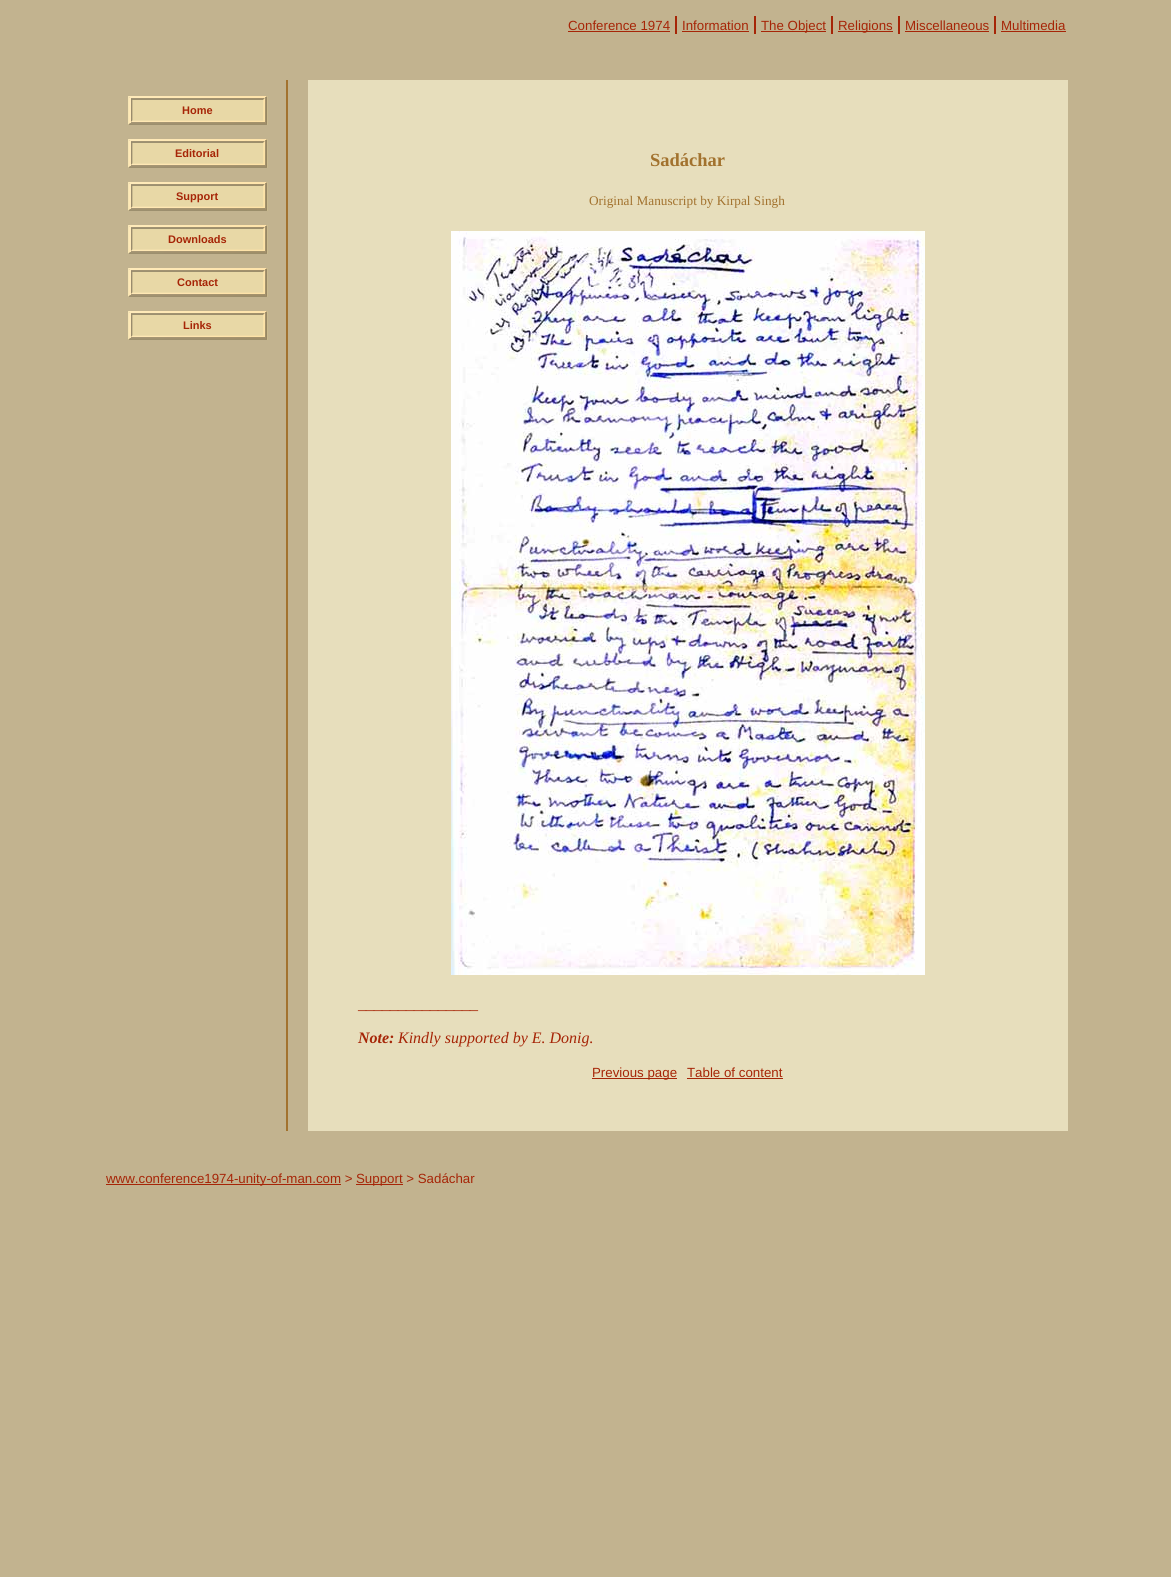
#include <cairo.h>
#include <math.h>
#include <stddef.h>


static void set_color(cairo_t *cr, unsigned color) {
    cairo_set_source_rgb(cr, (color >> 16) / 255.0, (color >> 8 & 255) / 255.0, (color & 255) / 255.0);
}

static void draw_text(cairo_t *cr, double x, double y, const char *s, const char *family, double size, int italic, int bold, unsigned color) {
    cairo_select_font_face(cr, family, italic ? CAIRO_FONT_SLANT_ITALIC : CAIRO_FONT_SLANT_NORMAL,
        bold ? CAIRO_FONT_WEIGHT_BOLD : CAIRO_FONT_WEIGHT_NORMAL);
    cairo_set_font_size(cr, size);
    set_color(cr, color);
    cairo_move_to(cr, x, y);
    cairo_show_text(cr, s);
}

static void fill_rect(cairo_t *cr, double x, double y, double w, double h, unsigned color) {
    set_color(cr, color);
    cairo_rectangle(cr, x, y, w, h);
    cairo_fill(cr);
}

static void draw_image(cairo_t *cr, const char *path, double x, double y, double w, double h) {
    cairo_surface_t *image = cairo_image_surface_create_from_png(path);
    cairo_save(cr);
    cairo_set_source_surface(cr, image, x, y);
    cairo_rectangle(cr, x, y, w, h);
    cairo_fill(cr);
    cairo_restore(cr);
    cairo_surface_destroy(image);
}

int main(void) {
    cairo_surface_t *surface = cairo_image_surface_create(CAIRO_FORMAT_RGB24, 1171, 1577);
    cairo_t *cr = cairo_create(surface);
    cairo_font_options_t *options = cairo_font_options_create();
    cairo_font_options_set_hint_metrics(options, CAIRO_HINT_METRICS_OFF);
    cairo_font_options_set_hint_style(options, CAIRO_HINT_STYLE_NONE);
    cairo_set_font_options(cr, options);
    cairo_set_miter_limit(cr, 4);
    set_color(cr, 0xC2B38F);
    cairo_paint(cr);
    draw_text(cr, 568, 30, "Conference 1974", "Liberation Sans", 13.3, 0, 0, 0xA62507);
    fill_rect(cr, 568, 31, 102, 1, 0xA62507);
    fill_rect(cr, 675, 16, 2, 18, 0xA62507);
    draw_text(cr, 682, 30, "Information", "Liberation Sans", 13.3, 0, 0, 0xA62507);
    fill_rect(cr, 682, 31, 67, 1, 0xA62507);
    fill_rect(cr, 754, 16, 2, 18, 0xA62507);
    fill_rect(cr, 761, 31, 65, 1, 0xA62507);
    draw_text(cr, 761, 30, "The Object", "Liberation Sans", 13.3, 0, 0, 0xA62507);
    fill_rect(cr, 831, 16, 2, 18, 0xA62507);
    fill_rect(cr, 838, 31, 55, 1, 0xA62507);
    draw_text(cr, 838, 30, "Religions", "Liberation Sans", 13.3, 0, 0, 0xA62507);
    fill_rect(cr, 898, 16, 2, 18, 0xA62507);
    draw_text(cr, 905, 30, "Miscellaneous", "Liberation Sans", 13.3, 0, 0, 0xA62507);
    fill_rect(cr, 905, 31, 84, 1, 0xA62507);
    fill_rect(cr, 994, 16, 2, 18, 0xA62507);
    draw_text(cr, 1001, 30, "Multimedia", "Liberation Sans", 13.3, 0, 0, 0xA62507);
    fill_rect(cr, 1001, 31, 65, 1, 0xA62507);
    draw_image(cr, "assets/img1.png", 128, 96, 140, 29);
    draw_text(cr, 182, 114, "Home", "Liberation Sans", 11, 0, 1, 0xA62507);
    draw_image(cr, "assets/img1.png", 128, 139, 140, 29);
    draw_text(cr, 175, 157, "Editorial", "Liberation Sans", 11, 0, 1, 0xA62507);
    draw_image(cr, "assets/img1.png", 128, 182, 140, 29);
    draw_text(cr, 176, 200, "Support", "Liberation Sans", 11, 0, 1, 0xA62507);
    draw_image(cr, "assets/img1.png", 128, 225, 140, 29);
    draw_text(cr, 168, 243, "Downloads", "Liberation Sans", 11, 0, 1, 0xA62507);
    draw_image(cr, "assets/img1.png", 128, 268, 140, 29);
    draw_text(cr, 177, 286, "Contact", "Liberation Sans", 11, 0, 1, 0xA62507);
    draw_image(cr, "assets/img1.png", 128, 311, 140, 29);
    draw_text(cr, 183, 329, "Links", "Liberation Sans", 11, 0, 1, 0xA62507);
    fill_rect(cr, 286, 80, 2, 1051, 0xA2722E);
    fill_rect(cr, 308, 80, 760, 1051, 0xE7DEBC);
    draw_text(cr, 650, 166, "Sadáchar", "Liberation Serif", 18.5, 0, 1, 0xA2722E);
    draw_text(cr, 589, 205, "Original Manuscript by Kirpal Singh", "Liberation Serif", 13.25, 0, 0, 0xA2722E);
    draw_image(cr, "assets/img2.png", 451, 231, 474, 744);
    draw_text(cr, 358, 1009, "_______________", "Liberation Serif", 16, 0, 0, 0xA62507);
    draw_text(cr, 358, 1043, "Note:", "Liberation Serif", 16, 1, 1, 0xA62507);
    draw_text(cr, 398, 1043, "Kindly supported by E. Donig.", "Liberation Serif", 16, 1, 0, 0xA62507);
    fill_rect(cr, 592, 1078, 85, 1, 0xA62507);
    draw_text(cr, 592, 1077, "Previous page", "Liberation Sans", 13.3, 0, 0, 0xA62507);
    draw_text(cr, 687, 1077, "Table of content", "Liberation Sans", 13.3, 0, 0, 0xA62507);
    fill_rect(cr, 687, 1078, 96, 1, 0xA62507);
    fill_rect(cr, 106, 1184, 235, 1, 0xA62507);
    draw_text(cr, 106, 1183, "www.conference1974-unity-of-man.com >", "Liberation Sans", 13.3, 0, 0, 0xA62507);
    fill_rect(cr, 356, 1184, 47, 1, 0xA62507);
    draw_text(cr, 356, 1183, "Support > Sadáchar", "Liberation Sans", 13.3, 0, 0, 0xA62507);
    cairo_surface_write_to_png(surface, "output.png");
    cairo_font_options_destroy(options);
    cairo_destroy(cr);
    cairo_surface_destroy(surface);
    return 0;
}
